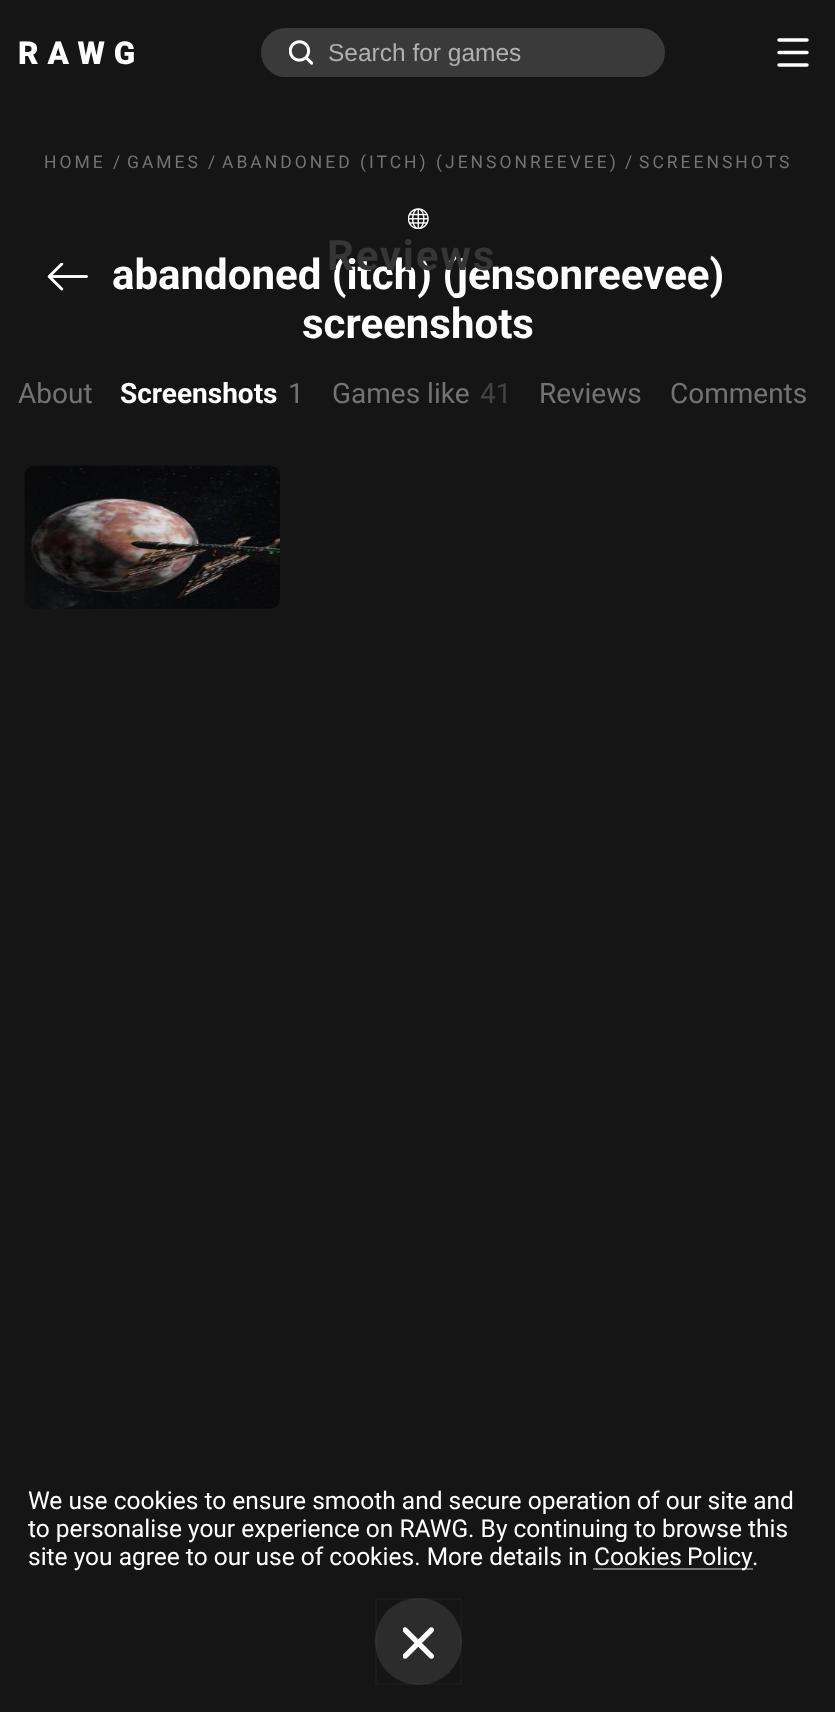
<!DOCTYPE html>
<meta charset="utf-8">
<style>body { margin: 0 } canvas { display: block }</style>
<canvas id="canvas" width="835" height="1712"></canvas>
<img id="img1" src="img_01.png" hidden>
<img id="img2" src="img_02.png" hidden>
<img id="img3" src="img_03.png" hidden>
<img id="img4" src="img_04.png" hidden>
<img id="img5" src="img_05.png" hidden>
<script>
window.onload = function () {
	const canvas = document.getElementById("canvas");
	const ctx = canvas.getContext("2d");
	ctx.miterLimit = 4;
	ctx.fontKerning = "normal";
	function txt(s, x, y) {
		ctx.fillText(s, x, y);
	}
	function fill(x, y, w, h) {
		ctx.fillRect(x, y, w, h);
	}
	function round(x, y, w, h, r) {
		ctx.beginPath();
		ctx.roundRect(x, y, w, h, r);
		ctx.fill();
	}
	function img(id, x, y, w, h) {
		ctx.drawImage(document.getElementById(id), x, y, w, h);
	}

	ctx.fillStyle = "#151515";
	fill(0, 0, 835, 1712);
	ctx.fillStyle = "#3A3A3A";
	round(261, 28, 404, 49, 24.5);
	img("img1", 289, 40, 24, 25);
	ctx.beginPath();
	ctx.moveTo(779, 40);
	ctx.lineTo(807, 40);
	ctx.moveTo(779, 52.5);
	ctx.lineTo(807, 52.5);
	ctx.moveTo(779, 65);
	ctx.lineTo(807, 65);
	ctx.strokeStyle = "#FFFFFF";
	ctx.lineWidth = 3.5;
	ctx.lineCap = "round";
	ctx.stroke();
	img("img2", 408, 208, 21, 21);
	img("img3", 47, 263, 41, 28);
	ctx.fillStyle = "#212121";
	round(25, 466, 255, 143, 11);
	img("img4", 24, 465, 256, 144);
	ctx.fillStyle = "#737373";
	fill(593, 1568, 160, 2);
	ctx.fillStyle = "#2C2C2C";
	ctx.beginPath();
	ctx.arc(418.5, 1641.5, 43.5, 0, Math.PI * 2);
	ctx.fill();
	ctx.strokeStyle = "rgba(151, 151, 151, 0.05)";
	ctx.lineWidth = 2;
	ctx.strokeRect(376, 1599, 85, 85);
	img("img5", 403, 1627, 31, 32);
	ctx.letterSpacing = "9px";
	ctx.font = "900 31.5px Roboto";
	ctx.fillStyle = "#FFFFFF";
	txt("RAWG", 18, 64);
	ctx.letterSpacing = "0px";
	ctx.font = "24.5px Liberation Sans";
	ctx.fillStyle = "#B0B0B0";
	txt("Search for games", 328, 61);
	ctx.letterSpacing = "3px";
	ctx.font = "17.5px Roboto";
	ctx.fillStyle = "#737373";
	txt("HOME", 44, 168);
	ctx.letterSpacing = "0px";
	txt("/", 113, 168);
	ctx.letterSpacing = "3px";
	txt("GAMES", 127, 168);
	ctx.letterSpacing = "0px";
	txt("/", 208, 168);
	ctx.letterSpacing = "3px";
	txt("ABANDONED (ITCH) (JENSONREEVEE)", 222, 168);
	ctx.letterSpacing = "0px";
	txt("/", 625, 168);
	ctx.letterSpacing = "3px";
	txt("SCREENSHOTS", 639, 168);
	ctx.letterSpacing = "0px";
	ctx.font = "bold 42px Roboto";
	ctx.fillStyle = "#FFFFFF";
	txt("abandoned (itch) (jensonreevee)", 112, 289);
	ctx.letterSpacing = "1.75px";
	ctx.fillStyle = "#363636";
	txt("Reviews", 327, 270);
	ctx.letterSpacing = "0px";
	ctx.fillStyle = "#FFFFFF";
	txt("screenshots", 302, 338);
	ctx.font = "28px Roboto";
	ctx.fillStyle = "#737373";
	txt("About", 18, 403);
	ctx.font = "bold 28px Roboto";
	ctx.fillStyle = "#FFFFFF";
	txt("Screenshots", 120, 403);
	ctx.font = "28px Roboto";
	ctx.fillStyle = "#737373";
	txt("1", 288, 403);
	txt("Games like", 332, 403);
	ctx.fillStyle = "#444444";
	txt("41", 480, 403);
	ctx.fillStyle = "#737373";
	txt("Reviews", 539, 403);
	txt("Comments", 670, 403);
	ctx.font = "24.5px Roboto";
	ctx.fillStyle = "#FFFFFF";
	txt("We use cookies to ensure smooth and secure operation of our site and", 28, 1509);
	txt("to personalise your experience on RAWG. By continuing to browse this", 28, 1537);
	txt("site you agree to our use of cookies. More details in", 28, 1565);
	ctx.wordSpacing = "-1px";
	txt("Cookies Policy", 594, 1565);
	ctx.wordSpacing = "0px";
	txt(".", 752, 1565);
};
</script>
